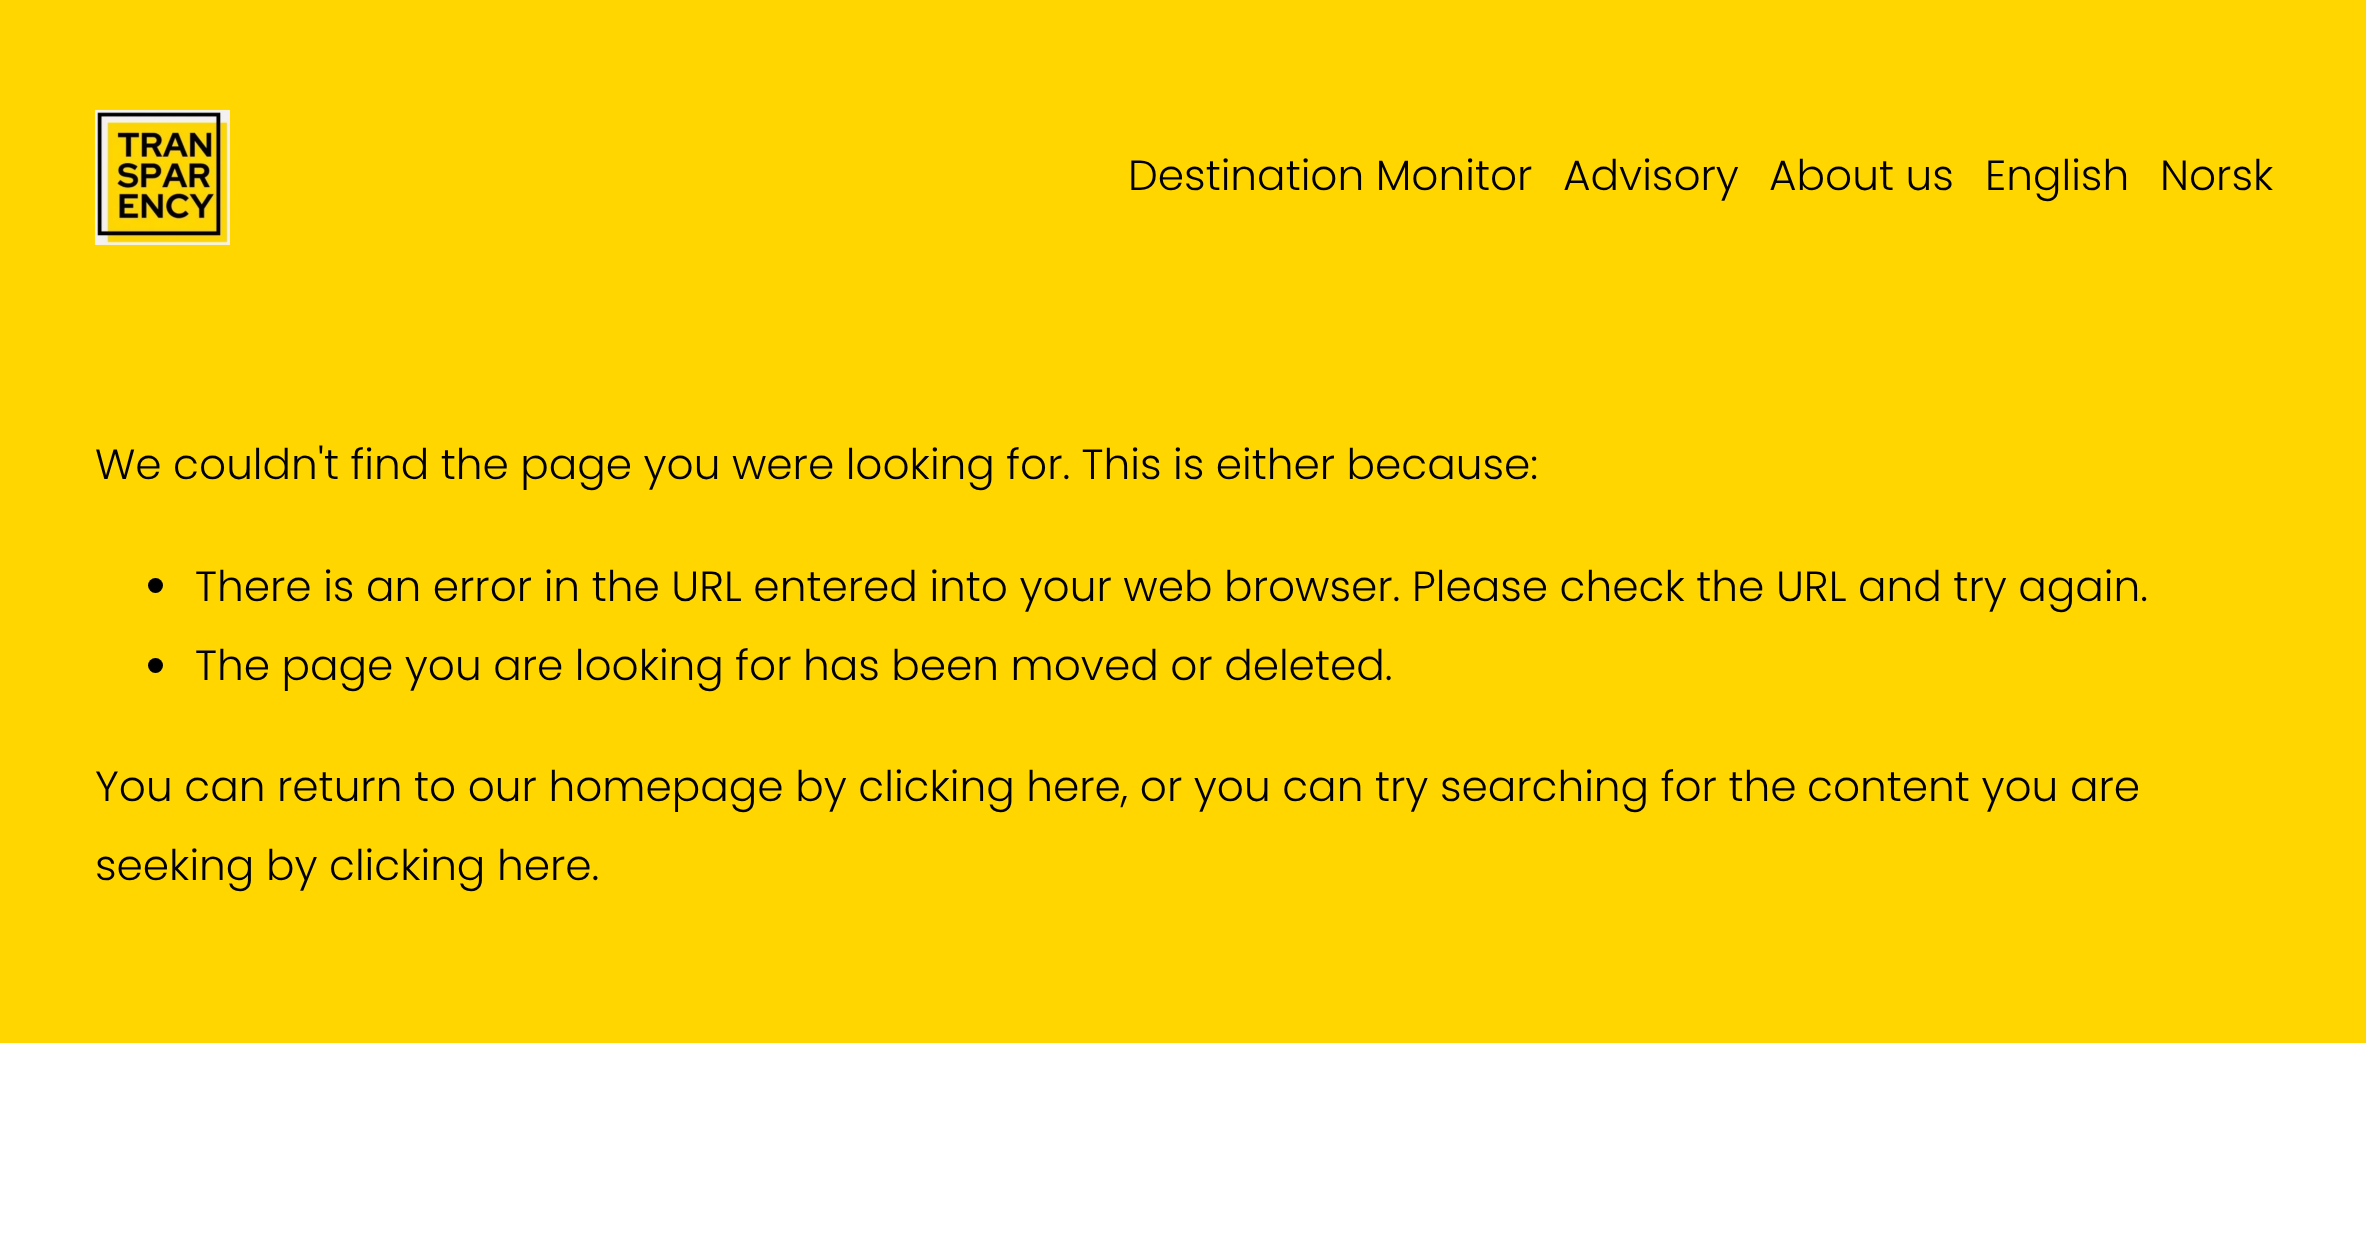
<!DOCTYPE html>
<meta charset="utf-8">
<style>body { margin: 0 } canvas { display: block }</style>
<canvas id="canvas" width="2366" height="1249"></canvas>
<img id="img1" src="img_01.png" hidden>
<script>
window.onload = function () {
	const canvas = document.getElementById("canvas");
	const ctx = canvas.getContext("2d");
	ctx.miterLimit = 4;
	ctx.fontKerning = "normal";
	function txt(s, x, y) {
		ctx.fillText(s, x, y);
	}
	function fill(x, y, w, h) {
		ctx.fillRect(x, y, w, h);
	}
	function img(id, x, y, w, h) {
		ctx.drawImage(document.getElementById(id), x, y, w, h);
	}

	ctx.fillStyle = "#FFD600";
	fill(0, 0, 2366, 1249);
	img("img1", 94, 109, 136, 136);
	ctx.fillStyle = "#000000";
	ctx.beginPath();
	ctx.arc(155.5, 585.5, 7.5, 0, Math.PI * 2);
	ctx.fill();
	ctx.beginPath();
	ctx.arc(155.5, 665.5, 7.5, 0, Math.PI * 2);
	ctx.fill();
	ctx.fillStyle = "#FFFFFF";
	fill(0, 1043, 2366, 206);
	ctx.font = "300 42.25px Poppins";
	ctx.fillStyle = "#000000";
	txt("Destination Monitor", 1128, 190);
	txt("Advisory", 1563, 190);
	txt("About us", 1769, 190);
	txt("English", 1985, 190);
	txt("Norsk", 2160, 190);
	ctx.wordSpacing = "-0.1px";
	txt("We couldn't find the page you were looking for. This is either because:", 95, 479);
	ctx.wordSpacing = "0px";
	txt("There is an error in the URL entered into your web browser. Please check the URL and try again.", 195, 601);
	ctx.wordSpacing = "-0.1px";
	txt("The page you are looking for has been moved or deleted.", 195, 680);
	ctx.wordSpacing = "0px";
	txt("You can return to our homepage by clicking here, or you can try searching for the", 95, 801);
	txt("content you are", 1807, 801);
	txt("seeking by clicking here.", 95, 880);
};
</script>
